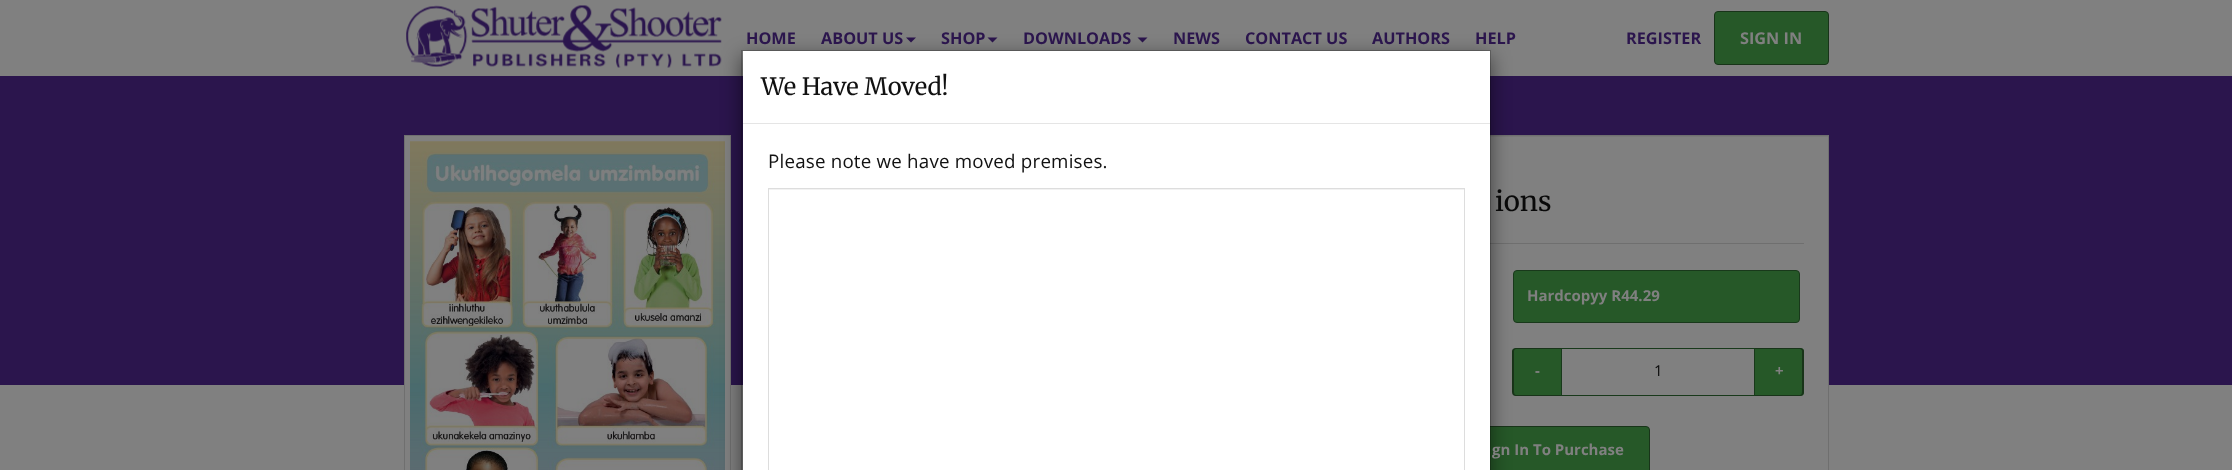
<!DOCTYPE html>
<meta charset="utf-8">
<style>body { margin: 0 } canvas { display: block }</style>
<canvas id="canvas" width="2232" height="470"></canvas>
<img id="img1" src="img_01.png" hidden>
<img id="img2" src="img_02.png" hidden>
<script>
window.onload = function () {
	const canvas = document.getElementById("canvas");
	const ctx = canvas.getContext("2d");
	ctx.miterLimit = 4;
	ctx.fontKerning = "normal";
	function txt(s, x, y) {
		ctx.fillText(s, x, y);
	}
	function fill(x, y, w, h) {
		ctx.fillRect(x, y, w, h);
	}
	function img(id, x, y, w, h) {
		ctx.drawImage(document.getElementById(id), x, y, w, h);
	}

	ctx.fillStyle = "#2B154D";
	fill(0, 0, 2232, 470);
	ctx.fillStyle = "#808080";
	fill(0, 0, 2232, 76);
	img("img1", 406, 5, 316, 63);
	ctx.fillStyle = "#2B154D";
	ctx.beginPath();
	ctx.moveTo(906, 37.5);
	ctx.lineTo(916, 37.5);
	ctx.lineTo(911, 42.5);
	ctx.closePath();
	ctx.fill();
	ctx.beginPath();
	ctx.moveTo(987.5, 37.5);
	ctx.lineTo(997.5, 37.5);
	ctx.lineTo(992.5, 42.5);
	ctx.closePath();
	ctx.fill();
	ctx.beginPath();
	ctx.moveTo(1137.5, 37.5);
	ctx.lineTo(1147.5, 37.5);
	ctx.lineTo(1142.5, 42.5);
	ctx.closePath();
	ctx.fill();
	ctx.fillStyle = "#265828";
	ctx.beginPath();
	ctx.roundRect(1714.5, 11.5, 114, 53, 3.5);
	ctx.fill();
	ctx.strokeStyle = "#183419";
	ctx.stroke();
	ctx.fillStyle = "#808080";
	fill(0, 385, 2232, 85);
	fill(405, 136, 325, 249);
	ctx.strokeStyle = "#6F6F6F";
	ctx.strokeRect(404.5, 135.5, 326, 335);
	img("img2", 410, 141, 315, 329);
	fill(1490, 137, 338, 248);
	ctx.fillStyle = "#797979";
	fill(1490, 136, 338, 1);
	ctx.strokeRect(770.5, 135.5, 1058, 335);
	ctx.fillStyle = "#6F6F6F";
	fill(1490, 243, 314, 1);
	ctx.fillStyle = "#265828";
	ctx.beginPath();
	ctx.roundRect(1513.5, 270.5, 286, 52, 3.5);
	ctx.fill();
	ctx.strokeStyle = "#19391B";
	ctx.stroke();
	ctx.beginPath();
	ctx.roundRect(1513, 348, 48, 48, [4, 0, 0, 4]);
	ctx.fill();
	ctx.fillStyle = "#183419";
	ctx.beginPath();
	ctx.moveTo(1516, 348);
	ctx.lineTo(1561, 348);
	ctx.lineTo(1561, 396);
	ctx.lineTo(1516, 396);
	ctx.bezierCurveTo(1514, 396, 1512, 395, 1512, 392);
	ctx.lineTo(1512, 351);
	ctx.bezierCurveTo(1512, 349, 1514, 348, 1516, 348);
	ctx.closePath();
	ctx.moveTo(1516, 349);
	ctx.lineTo(1561, 349);
	ctx.lineTo(1561, 395);
	ctx.lineTo(1516, 395);
	ctx.bezierCurveTo(1515, 395, 1514, 394, 1514, 392);
	ctx.lineTo(1514, 351);
	ctx.bezierCurveTo(1514, 350, 1515, 349, 1516, 349);
	ctx.closePath();
	ctx.fill("evenodd");
	ctx.fillStyle = "#265828";
	ctx.beginPath();
	ctx.roundRect(1453.5, 426.5, 196, 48, 3.5);
	ctx.fill();
	ctx.strokeStyle = "#183419";
	ctx.stroke();
	ctx.fillStyle = "rgba(0, 0, 0, 0.5)";
	ctx.filter = "blur(9.5px)";
	ctx.beginPath();
	ctx.rect(741, 56, 750, 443);
	ctx.fill();
	ctx.filter = "none";
	ctx.fillStyle = "#FFFFFF";
	fill(743, 51, 747, 419);
	ctx.strokeStyle = "rgba(0, 0, 0, 0.2)";
	ctx.strokeRect(741.5, 50.5, 749, 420);
	ctx.fillStyle = "#E5E5E5";
	fill(743, 123, 747, 1);
	ctx.fillStyle = "#F2F2F2";
	fill(769, 189, 695, 1);
	ctx.strokeStyle = "#DDDDDD";
	ctx.strokeRect(768.5, 188.5, 696, 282);
	ctx.strokeStyle = "#19391B";
	ctx.strokeRect(1561.5, 348.5, 193, 47);
	ctx.fillStyle = "#265828";
	ctx.beginPath();
	ctx.roundRect(1755, 348, 49, 48, [0, 4, 4, 0]);
	ctx.fill();
	ctx.fillStyle = "#183419";
	ctx.beginPath();
	ctx.moveTo(1755, 348);
	ctx.lineTo(1800, 348);
	ctx.bezierCurveTo(1802, 348, 1804, 349, 1804, 351);
	ctx.lineTo(1804, 392);
	ctx.bezierCurveTo(1804, 395, 1802, 396, 1800, 396);
	ctx.lineTo(1755, 396);
	ctx.closePath();
	ctx.moveTo(1755, 349);
	ctx.lineTo(1800, 349);
	ctx.bezierCurveTo(1801, 349, 1802, 350, 1802, 351);
	ctx.lineTo(1802, 392);
	ctx.bezierCurveTo(1802, 394, 1801, 395, 1800, 395);
	ctx.lineTo(1755, 395);
	ctx.closePath();
	ctx.fill("evenodd");
	ctx.font = "bold 16.25px Open Sans";
	ctx.fillStyle = "#2B154D";
	txt("HOME", 746, 44);
	txt("ABOUT US", 821, 44);
	txt("SHOP", 941, 44);
	txt("DOWNLOADS", 1023, 44);
	txt("NEWS", 1173, 44);
	txt("CONTACT US", 1245, 44);
	txt("AUTHORS", 1372, 44);
	txt("HELP", 1475, 44);
	txt("REGISTER", 1626, 44);
	ctx.fillStyle = "#808080";
	txt("SIGN IN", 1740, 44);
	ctx.font = "300 23.75px Merriweather";
	ctx.fillStyle = "#111111";
	txt("We Have Moved!", 761, 95);
	ctx.letterSpacing = "0.2px";
	ctx.font = "18.75px Open Sans";
	txt("Please note we have moved premises.", 768, 168);
	ctx.letterSpacing = "0px";
	ctx.font = "300 27.5px Merriweather";
	ctx.fillStyle = "#090909";
	txt("ions", 1495, 211);
	ctx.font = "bold 15px Open Sans";
	ctx.fillStyle = "#808080";
	txt("Hardcopyy R44.29", 1527, 301);
	txt("-", 1535, 376);
	ctx.font = "15px Open Sans";
	ctx.fillStyle = "#090909";
	txt("1", 1654, 376);
	ctx.font = "bold 15px Open Sans";
	ctx.fillStyle = "#808080";
	txt("+", 1775, 376);
	txt("gn In To Purchase", 1492, 455);
};
</script>
